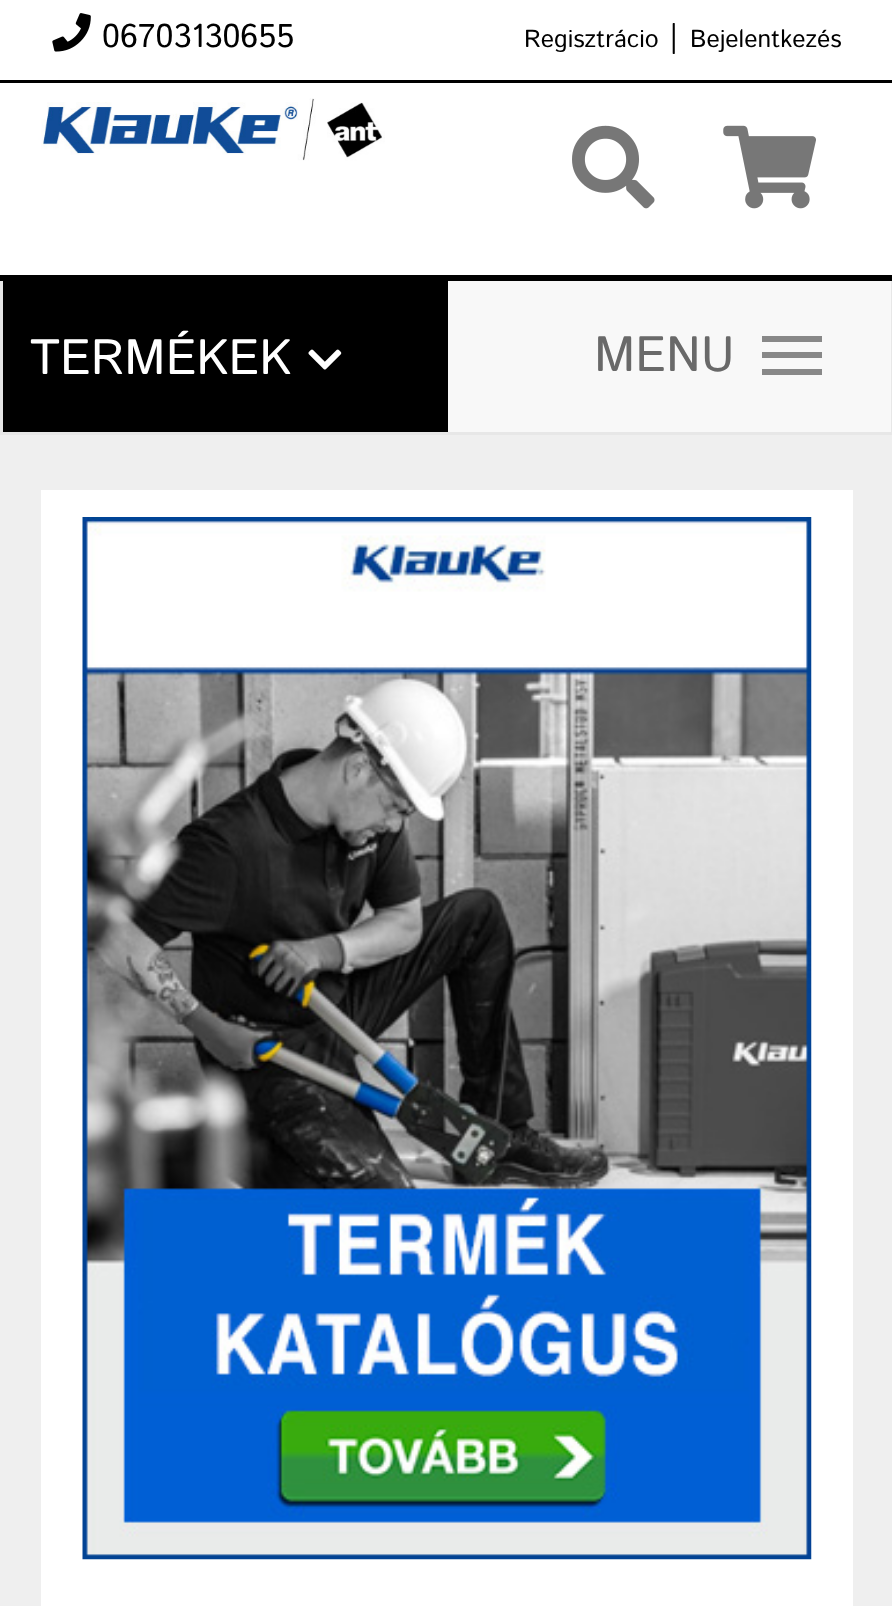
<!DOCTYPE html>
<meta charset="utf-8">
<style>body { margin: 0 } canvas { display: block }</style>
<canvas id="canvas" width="892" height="1606"></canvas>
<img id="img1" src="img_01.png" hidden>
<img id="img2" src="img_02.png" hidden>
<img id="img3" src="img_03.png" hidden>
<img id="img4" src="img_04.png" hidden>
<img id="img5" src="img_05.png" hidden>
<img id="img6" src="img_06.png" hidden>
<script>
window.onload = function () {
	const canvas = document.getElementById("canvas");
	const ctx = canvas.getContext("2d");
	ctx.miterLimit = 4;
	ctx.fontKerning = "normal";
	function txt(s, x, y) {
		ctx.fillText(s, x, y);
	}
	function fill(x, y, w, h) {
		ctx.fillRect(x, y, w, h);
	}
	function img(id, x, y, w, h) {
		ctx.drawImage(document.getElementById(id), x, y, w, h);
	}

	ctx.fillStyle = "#EFEFEF";
	fill(0, 0, 892, 1606);
	ctx.fillStyle = "#FFFFFF";
	fill(0, 0, 892, 80);
	ctx.fillStyle = "#000000";
	fill(0, 80, 892, 3);
	img("img1", 52, 13, 39, 39);
	ctx.fillStyle = "#FFFFFF";
	fill(0, 83, 892, 192);
	ctx.fillStyle = "#F8F8F8";
	fill(448, 281, 443, 151);
	ctx.strokeStyle = "#E7E7E7";
	ctx.lineWidth = 3;
	ctx.strokeRect(1.5, 276.5, 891, 157);
	ctx.fillStyle = "#000000";
	fill(0, 275, 892, 6);
	img("img2", 41, 98, 344, 63);
	img("img3", 572, 125, 83, 84);
	img("img4", 723, 125, 93, 84);
	fill(3, 281, 445, 151);
	img("img5", 308, 349, 34, 21);
	ctx.fillStyle = "#888888";
	fill(762, 336, 60, 6);
	fill(762, 352, 60, 6);
	fill(762, 369, 60, 6);
	ctx.fillStyle = "#FFFFFF";
	fill(41, 490, 812, 1116);
	img("img6", 82, 517, 730, 1043);
	ctx.font = "33px Istok Web";
	ctx.fillStyle = "#000000";
	txt("06703130655", 102, 47);
	ctx.font = "24.75px Istok Web";
	txt("Regisztrácio", 524, 47);
	ctx.font = "33px Istok Web";
	txt("|", 669, 47);
	ctx.font = "24.75px Istok Web";
	txt("Bejelentkezés", 690, 47);
	ctx.font = "49.5px Istok Web";
	ctx.fillStyle = "#FFFFFF";
	txt("TERMÉKEK", 30, 374);
	ctx.fillStyle = "#696969";
	txt("MENU", 594, 371);
};
</script>
